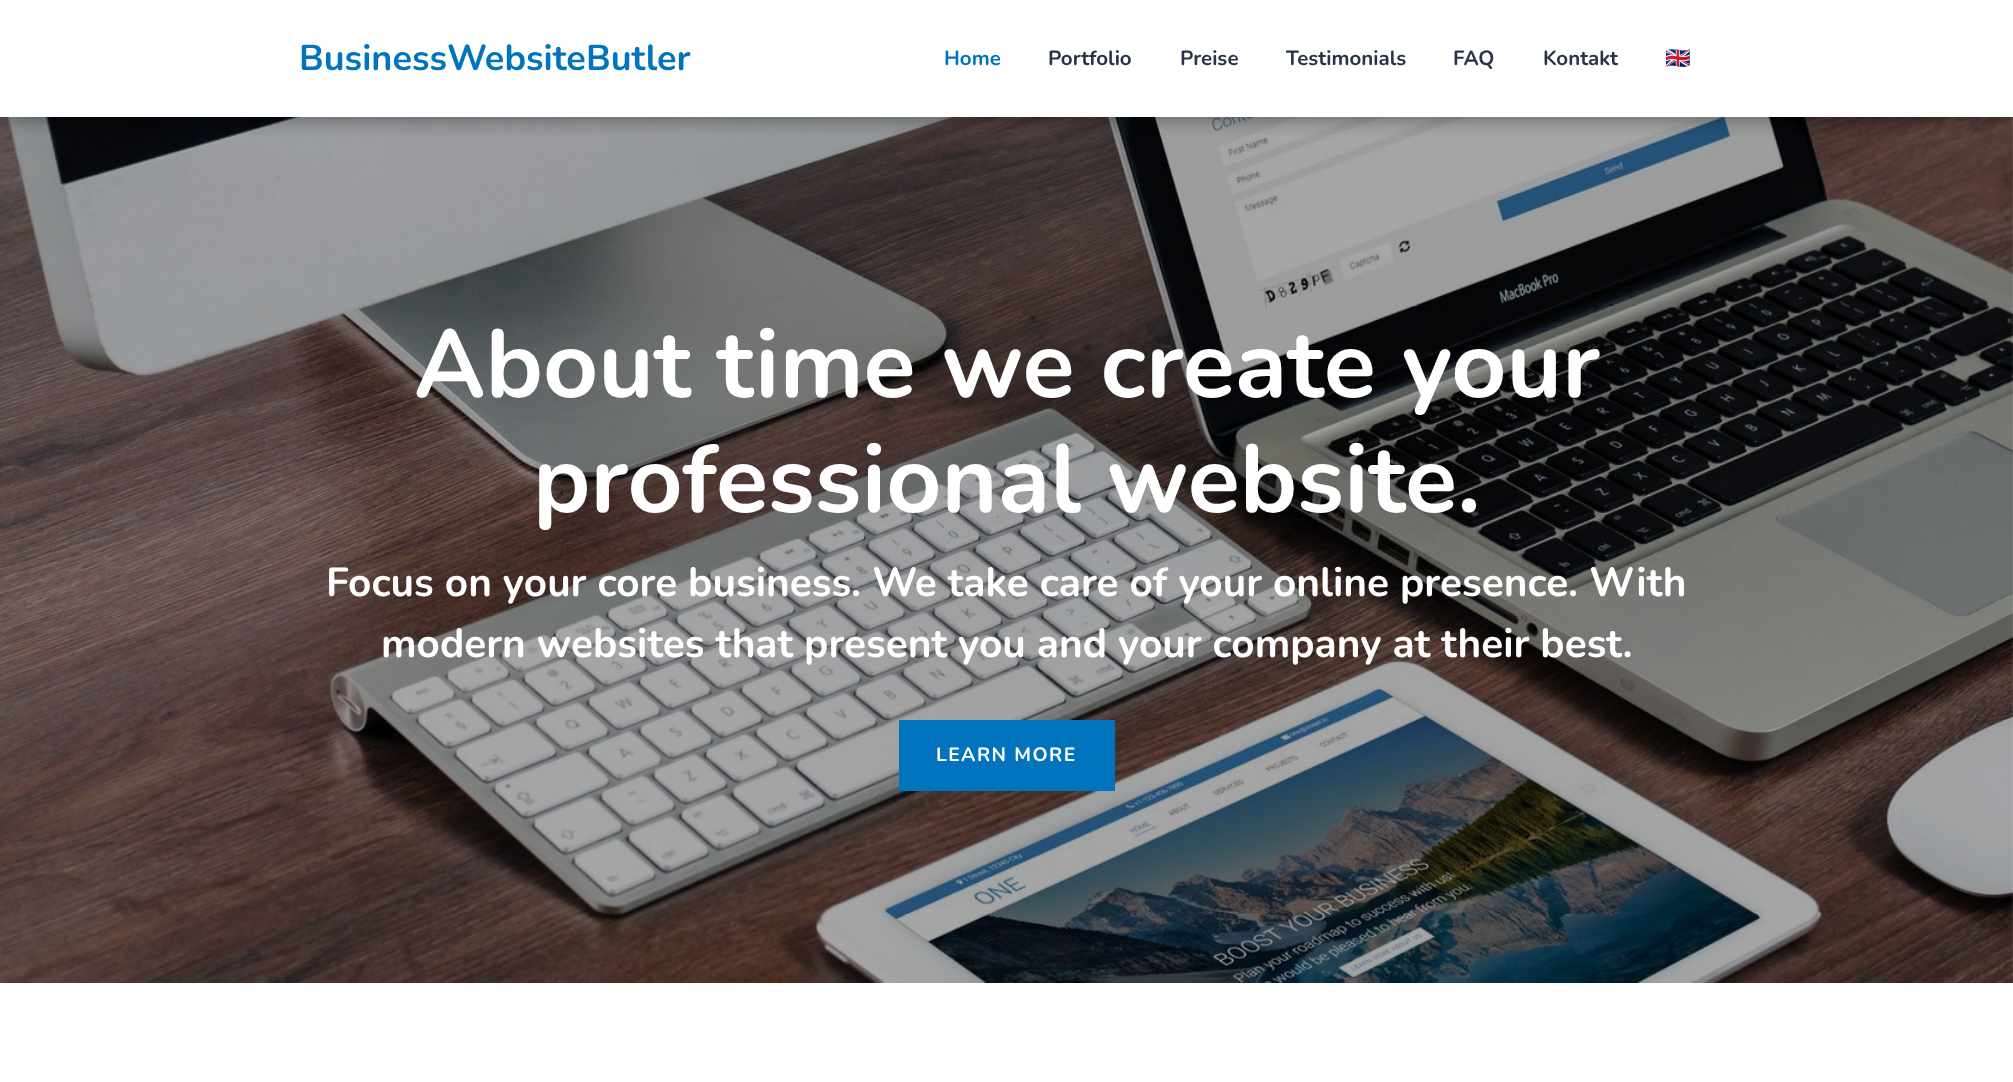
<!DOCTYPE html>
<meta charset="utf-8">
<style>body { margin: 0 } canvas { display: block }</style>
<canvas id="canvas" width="2013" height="1082"></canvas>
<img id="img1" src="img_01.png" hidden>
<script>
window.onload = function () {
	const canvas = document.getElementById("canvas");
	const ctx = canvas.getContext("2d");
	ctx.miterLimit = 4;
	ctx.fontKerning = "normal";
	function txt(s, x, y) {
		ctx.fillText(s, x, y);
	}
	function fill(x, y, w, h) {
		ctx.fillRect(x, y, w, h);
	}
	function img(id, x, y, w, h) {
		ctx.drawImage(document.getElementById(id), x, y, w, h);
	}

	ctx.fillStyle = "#FFFFFF";
	fill(0, 0, 2013, 1082);
	img("img1", 0, 117, 2013, 866);
	ctx.save();
	ctx.beginPath();
	ctx.rect(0, 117, 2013, 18);
	ctx.clip();
	ctx.fillStyle = "rgba(0, 0, 0, 0.5)";
	ctx.filter = "blur(11px)";
	ctx.beginPath();
	ctx.rect(5, 8, 2004, 108);
	ctx.fill();
	ctx.filter = "none";
	ctx.restore();
	ctx.fillStyle = "#0274BE";
	fill(899, 720, 216, 71);
	ctx.font = "bold 36px Nunito";
	txt("BusinessWebsiteButler", 299, 70);
	ctx.font = "bold 20.5px Nunito";
	txt("Home", 944, 65);
	ctx.fillStyle = "#293247";
	txt("Portfolio", 1048, 65);
	txt("Preise", 1180, 65);
	txt("Testimonials", 1286, 65);
	txt("FAQ", 1453, 65);
	txt("Kontakt", 1543, 65);
	ctx.font = "bold 20.5px Noto Color Emoji";
	txt("🇬🇧", 1665, 65);
	ctx.font = "bold 96px Nunito";
	ctx.fillStyle = "#FFFFFF";
	txt("About time we create your", 414, 397);
	txt("professional website.", 533, 512);
	ctx.font = "bold 40.55px Nunito";
	txt("Focus on your core business. We take care of your online presence. With", 326, 596);
	txt("modern websites that present you and your company at their best.", 381, 657);
	ctx.letterSpacing = "1.5px";
	ctx.font = "bold 19.25px Nunito";
	txt("LEARN MORE", 936, 761);
};
</script>
